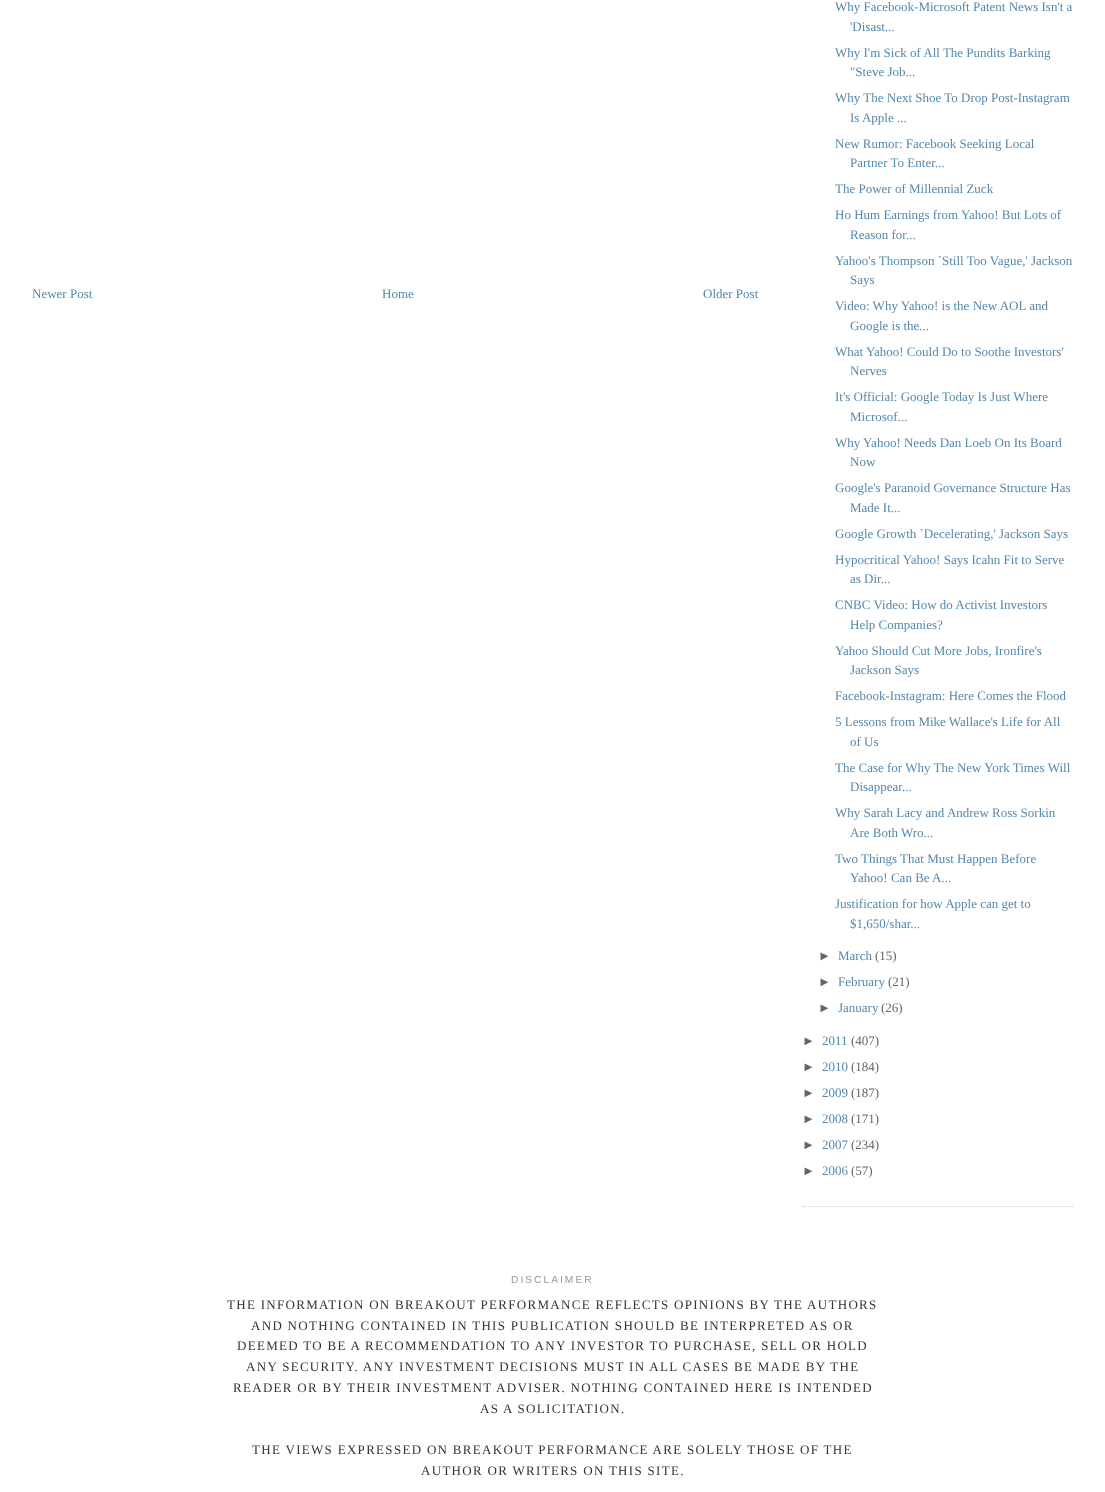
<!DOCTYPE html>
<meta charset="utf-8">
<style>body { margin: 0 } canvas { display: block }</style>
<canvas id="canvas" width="1105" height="1492"></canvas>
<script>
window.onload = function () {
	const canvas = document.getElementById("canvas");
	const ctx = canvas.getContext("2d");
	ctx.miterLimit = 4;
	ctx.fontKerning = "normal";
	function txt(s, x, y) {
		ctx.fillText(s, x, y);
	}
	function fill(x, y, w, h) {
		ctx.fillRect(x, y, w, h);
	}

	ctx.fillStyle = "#FFFFFF";
	fill(0, 0, 1105, 1492);
	ctx.beginPath();
	ctx.moveTo(802, 1206.5);
	ctx.lineTo(1073, 1206.5);
	ctx.strokeStyle = "#CCCCCC";
	ctx.setLineDash([1, 1]);
	ctx.stroke();
	ctx.font = "13px Liberation Serif";
	ctx.fillStyle = "#5588AA";
	txt("Newer Post", 32, 298);
	txt("Home", 382, 298);
	txt("Older Post", 703, 298);
	txt("Why Facebook-Microsoft Patent News Isn't a", 835, 11);
	txt("'Disast...", 850, 31);
	txt("Why I'm Sick of All The Pundits Barking", 835, 57);
	txt("\"Steve Job...", 850, 76);
	txt("Why The Next Shoe To Drop Post-Instagram", 835, 102);
	txt("Is Apple ...", 850, 122);
	txt("New Rumor: Facebook Seeking Local", 835, 148);
	txt("Partner To Enter...", 850, 167);
	txt("The Power of Millennial Zuck", 835, 193);
	txt("Ho Hum Earnings from Yahoo! But Lots of", 835, 219);
	txt("Reason for...", 850, 239);
	txt("Yahoo's Thompson `Still Too Vague,' Jackson", 835, 265);
	txt("Says", 850, 284);
	txt("Video: Why Yahoo! is the New AOL and", 835, 310);
	txt("Google is the...", 850, 330);
	txt("What Yahoo! Could Do to Soothe Investors'", 835, 356);
	txt("Nerves", 850, 375);
	txt("It's Official: Google Today Is Just Where", 835, 401);
	txt("Microsof...", 850, 421);
	txt("Why Yahoo! Needs Dan Loeb On Its Board", 835, 447);
	txt("Now", 850, 466);
	txt("Google's Paranoid Governance Structure Has", 835, 492);
	txt("Made It...", 850, 512);
	txt("Google Growth `Decelerating,' Jackson Says", 835, 538);
	txt("Hypocritical Yahoo! Says Icahn Fit to Serve", 835, 564);
	txt("as Dir...", 850, 583);
	txt("CNBC Video: How do Activist Investors", 835, 609);
	txt("Help Companies?", 850, 629);
	txt("Yahoo Should Cut More Jobs, Ironfire's", 835, 655);
	txt("Jackson Says", 850, 674);
	txt("Facebook-Instagram: Here Comes the Flood", 835, 700);
	txt("5 Lessons from Mike Wallace's Life for All", 835, 726);
	txt("of Us", 850, 746);
	txt("The Case for Why The New York Times Will", 835, 772);
	txt("Disappear...", 850, 791);
	txt("Why Sarah Lacy and Andrew Ross Sorkin", 835, 817);
	txt("Are Both Wro...", 850, 837);
	txt("Two Things That Must Happen Before", 835, 863);
	txt("Yahoo! Can Be A...", 850, 882);
	txt("Justification for how Apple can get to", 835, 908);
	txt("$1,650/shar...", 850, 928);
	ctx.font = "13px Liberation Sans";
	ctx.fillStyle = "#666666";
	txt("►", 818, 960);
	ctx.font = "13px Liberation Serif";
	ctx.fillStyle = "#5588AA";
	txt("March", 838, 960);
	ctx.fillStyle = "#666666";
	txt("(15)", 875, 960);
	ctx.font = "13px Liberation Sans";
	txt("►", 818, 986);
	ctx.font = "13px Liberation Serif";
	ctx.fillStyle = "#5588AA";
	txt("February", 838, 986);
	ctx.fillStyle = "#666666";
	txt("(21)", 888, 986);
	ctx.font = "13px Liberation Sans";
	txt("►", 818, 1012);
	ctx.font = "13px Liberation Serif";
	ctx.fillStyle = "#5588AA";
	txt("January", 838, 1012);
	ctx.fillStyle = "#666666";
	txt("(26)", 881, 1012);
	ctx.font = "13px Liberation Sans";
	txt("►", 802, 1045);
	ctx.font = "13px Liberation Serif";
	ctx.fillStyle = "#5588AA";
	txt("2011", 822, 1045);
	ctx.fillStyle = "#666666";
	txt("(407)", 851, 1045);
	ctx.font = "13px Liberation Sans";
	txt("►", 802, 1071);
	ctx.font = "13px Liberation Serif";
	ctx.fillStyle = "#5588AA";
	txt("2010", 822, 1071);
	ctx.fillStyle = "#666666";
	txt("(184)", 851, 1071);
	ctx.font = "13px Liberation Sans";
	txt("►", 802, 1097);
	ctx.font = "13px Liberation Serif";
	ctx.fillStyle = "#5588AA";
	txt("2009", 822, 1097);
	ctx.fillStyle = "#666666";
	txt("(187)", 851, 1097);
	ctx.font = "13px Liberation Sans";
	txt("►", 802, 1123);
	ctx.font = "13px Liberation Serif";
	ctx.fillStyle = "#5588AA";
	txt("2008", 822, 1123);
	ctx.fillStyle = "#666666";
	txt("(171)", 851, 1123);
	ctx.font = "13px Liberation Sans";
	txt("►", 802, 1149);
	ctx.font = "13px Liberation Serif";
	ctx.fillStyle = "#5588AA";
	txt("2007", 822, 1149);
	ctx.fillStyle = "#666666";
	txt("(234)", 851, 1149);
	ctx.font = "13px Liberation Sans";
	txt("►", 802, 1175);
	ctx.font = "13px Liberation Serif";
	ctx.fillStyle = "#5588AA";
	txt("2006", 822, 1175);
	ctx.fillStyle = "#666666";
	txt("(57)", 851, 1175);
	ctx.letterSpacing = "2px";
	ctx.font = "10.25px Liberation Sans";
	ctx.fillStyle = "#999999";
	txt("DISCLAIMER", 511, 1283);
	ctx.letterSpacing = "1.3px";
	ctx.font = "13px Liberation Serif";
	ctx.fillStyle = "#333333";
	txt("THE INFORMATION ON BREAKOUT PERFORMANCE REFLECTS OPINIONS BY THE AUTHORS", 227, 1309);
	txt("AND NOTHING CONTAINED IN THIS PUBLICATION SHOULD BE INTERPRETED AS OR", 251, 1330);
	txt("DEEMED TO BE A RECOMMENDATION TO ANY INVESTOR TO PURCHASE, SELL OR HOLD", 237, 1350);
	txt("ANY SECURITY. ANY INVESTMENT DECISIONS MUST IN ALL CASES BE MADE BY THE", 246, 1371);
	txt("READER OR BY THEIR INVESTMENT ADVISER. NOTHING CONTAINED HERE IS INTENDED", 233, 1392);
	txt("AS A SOLICITATION.", 480, 1413);
	txt("THE VIEWS EXPRESSED ON BREAKOUT PERFORMANCE ARE SOLELY THOSE OF THE", 252, 1454);
	txt("AUTHOR OR WRITERS ON THIS SITE.", 421, 1475);
};
</script>
